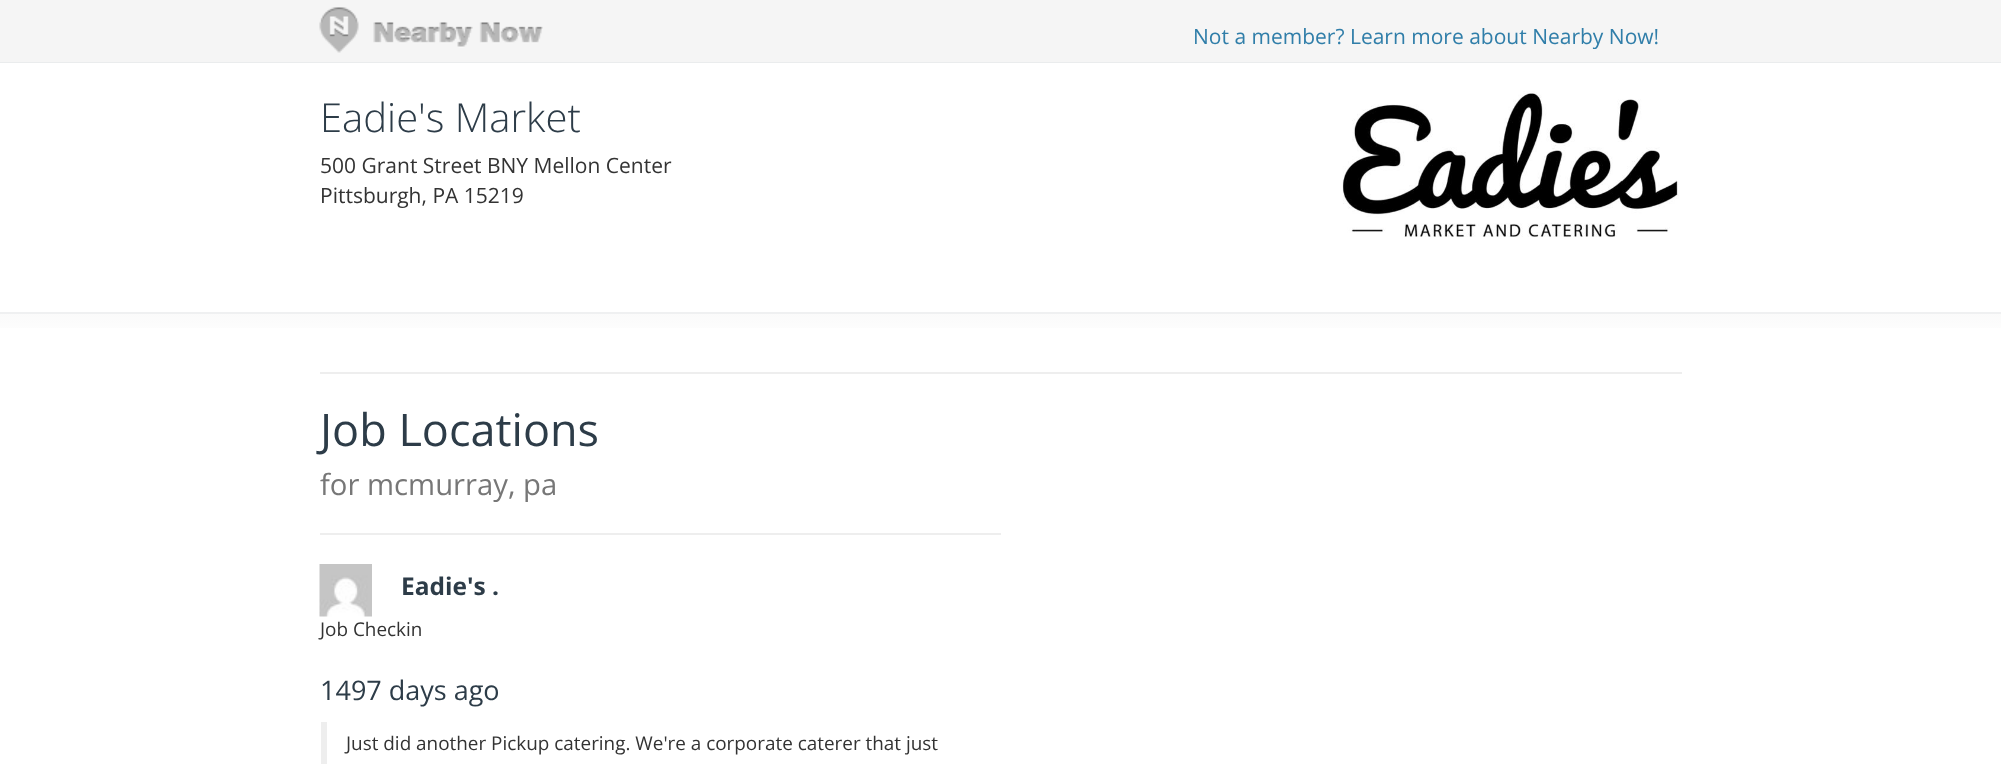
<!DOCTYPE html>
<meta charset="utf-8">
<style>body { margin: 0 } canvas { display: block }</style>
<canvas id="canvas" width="2001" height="764"></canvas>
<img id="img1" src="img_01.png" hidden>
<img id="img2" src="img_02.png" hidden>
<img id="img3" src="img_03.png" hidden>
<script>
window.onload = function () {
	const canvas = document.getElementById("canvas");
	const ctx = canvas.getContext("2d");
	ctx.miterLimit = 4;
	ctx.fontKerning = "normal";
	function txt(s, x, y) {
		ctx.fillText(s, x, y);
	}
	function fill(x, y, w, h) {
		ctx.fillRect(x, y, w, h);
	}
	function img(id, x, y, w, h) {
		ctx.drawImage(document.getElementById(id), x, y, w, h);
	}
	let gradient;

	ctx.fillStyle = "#FFFFFF";
	fill(0, 0, 2001, 764);
	ctx.fillStyle = "#EAECED";
	fill(0, 62, 2001, 1);
	ctx.fillStyle = "#F5F5F5";
	fill(0, 0, 2001, 62);
	img("img1", 319, 7, 224, 46);
	img("img2", 1342, 91, 337, 146);
	gradient = ctx.createLinearGradient(1001, 313, 1001, 342);
	gradient.addColorStop(0, "#FAFAFA");
	gradient.addColorStop(1, "#FFFFFF");
	ctx.fillStyle = gradient;
	fill(0, 314, 2001, 14);
	ctx.fillStyle = "#EFF0F1";
	fill(0, 312, 2001, 2);
	ctx.fillStyle = "#EEEEEE";
	fill(320, 372, 1362, 2);
	fill(320, 533, 681, 2);
	img("img3", 319, 564, 53, 53);
	fill(321, 722, 6, 42);
	ctx.font = "21px Open Sans";
	ctx.fillStyle = "#307EA9";
	txt("Not a member? Learn more about Nearby Now!", 1193, 44);
	ctx.font = "300 40px Open Sans";
	ctx.fillStyle = "#2D3C48";
	txt("Eadie's Market", 320, 132);
	ctx.font = "21px Open Sans";
	ctx.fillStyle = "#333333";
	txt("500 Grant Street BNY Mellon Center", 320, 173);
	txt("Pittsburgh, PA 15219", 320, 203);
	ctx.font = "45px Open Sans";
	ctx.fillStyle = "#2D3C48";
	txt("Job Locations", 320, 446);
	ctx.font = "29.25px Open Sans";
	ctx.fillStyle = "#777777";
	txt("for mcmurray, pa", 320, 495);
	ctx.font = "bold 24.5px Open Sans";
	ctx.fillStyle = "#2D3C48";
	txt("Eadie's .", 401, 595);
	ctx.font = "18.9px Open Sans";
	ctx.fillStyle = "#333333";
	txt("Job Checkin", 320, 636);
	ctx.font = "27px Open Sans";
	ctx.fillStyle = "#2D3C48";
	txt("1497 days ago", 320, 700);
	ctx.font = "18.9px Open Sans";
	ctx.fillStyle = "#333333";
	txt("Just did another Pickup catering. We're a corporate caterer that just", 346, 750);
};
</script>
